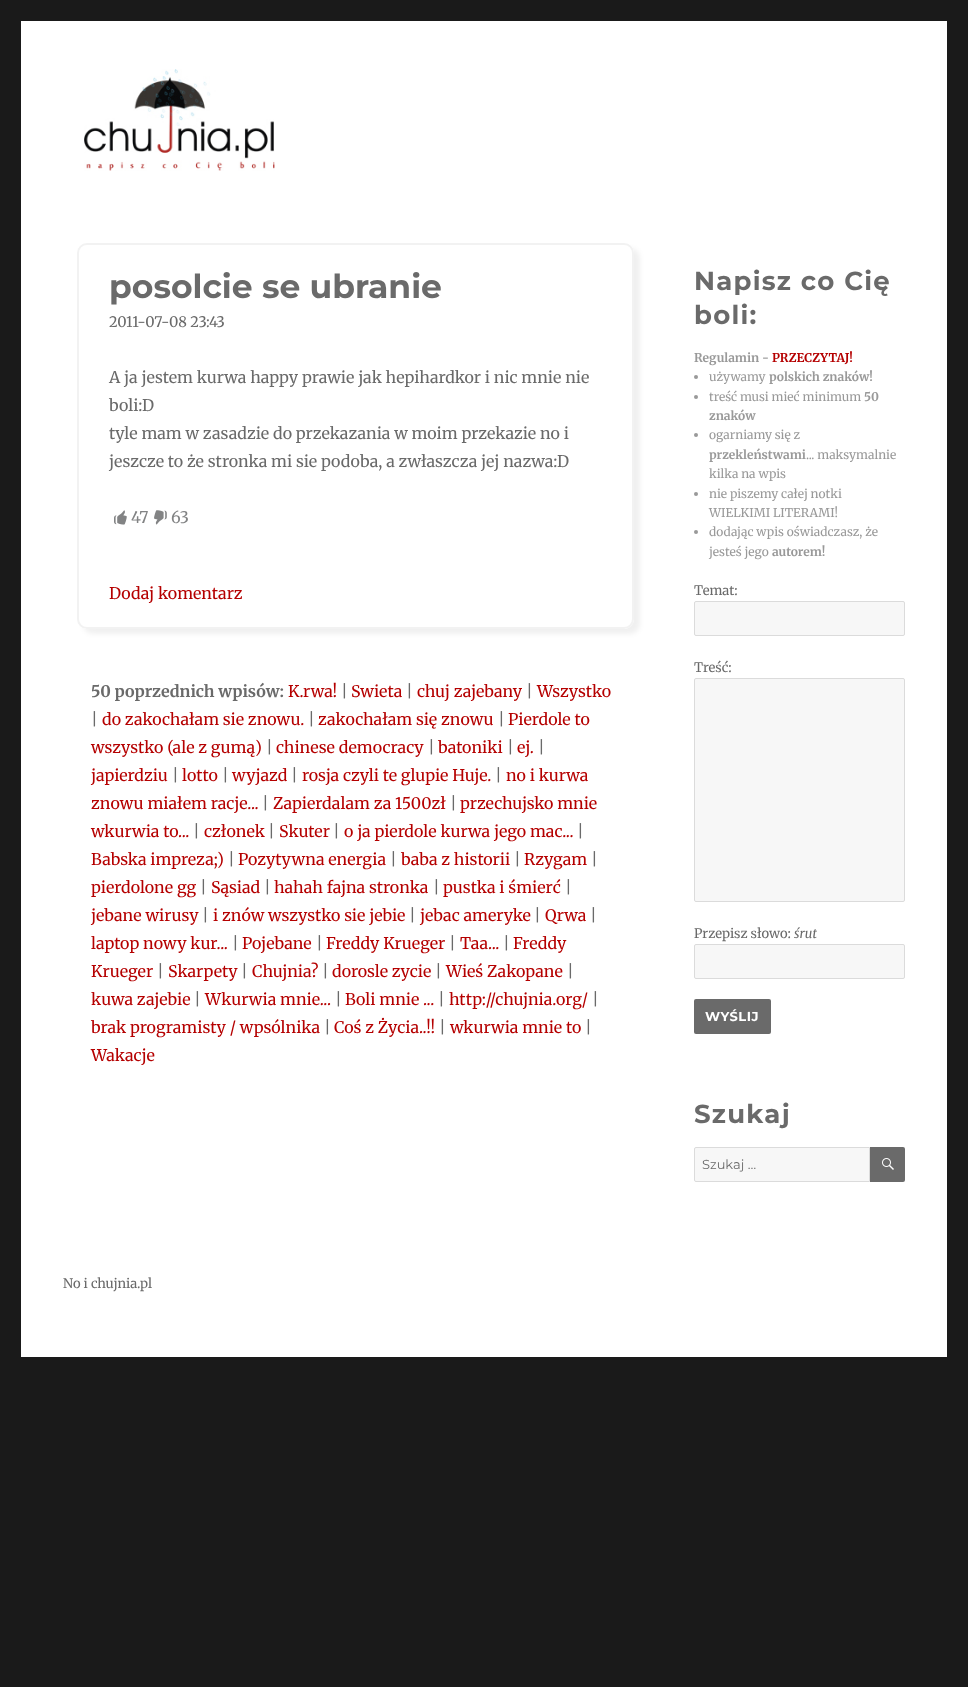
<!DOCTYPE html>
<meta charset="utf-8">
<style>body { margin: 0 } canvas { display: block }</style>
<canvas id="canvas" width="968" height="1687"></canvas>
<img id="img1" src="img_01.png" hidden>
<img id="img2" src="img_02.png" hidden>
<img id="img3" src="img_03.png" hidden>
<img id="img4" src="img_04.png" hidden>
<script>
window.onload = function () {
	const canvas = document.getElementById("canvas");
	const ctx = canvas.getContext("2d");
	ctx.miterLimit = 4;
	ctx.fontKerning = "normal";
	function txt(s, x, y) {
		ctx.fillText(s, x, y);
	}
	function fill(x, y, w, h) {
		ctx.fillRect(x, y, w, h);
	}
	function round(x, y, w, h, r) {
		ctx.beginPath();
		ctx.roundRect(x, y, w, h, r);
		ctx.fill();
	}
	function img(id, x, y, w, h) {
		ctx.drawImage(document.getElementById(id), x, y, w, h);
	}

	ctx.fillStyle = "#1A1A1A";
	fill(0, 0, 968, 1687);
	ctx.fillStyle = "#FFFFFF";
	fill(21, 21, 926, 1336);
	img("img1", 84, 69, 191, 102);
	ctx.save();
	ctx.beginPath();
	ctx.moveTo(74, 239);
	ctx.lineTo(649, 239);
	ctx.lineTo(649, 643);
	ctx.lineTo(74, 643);
	ctx.closePath();
	ctx.moveTo(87, 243);
	ctx.lineTo(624, 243);
	ctx.bezierCurveTo(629.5, 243, 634, 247.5, 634, 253);
	ctx.lineTo(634, 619);
	ctx.bezierCurveTo(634, 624.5, 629.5, 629, 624, 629);
	ctx.lineTo(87, 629);
	ctx.bezierCurveTo(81.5, 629, 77, 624.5, 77, 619);
	ctx.lineTo(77, 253);
	ctx.bezierCurveTo(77, 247.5, 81.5, 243, 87, 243);
	ctx.closePath();
	ctx.clip("evenodd");
	ctx.fillStyle = "rgba(0, 0, 0, 0.06)";
	ctx.filter = "blur(2.5px)";
	ctx.beginPath();
	ctx.roundRect(83, 248, 557, 386, 10);
	ctx.fill();
	ctx.filter = "none";
	ctx.restore();
	ctx.beginPath();
	ctx.roundRect(78, 244, 555, 384, 9);
	ctx.strokeStyle = "#F2F2F2";
	ctx.lineWidth = 2;
	ctx.stroke();
	img("img2", 114, 510, 13, 15);
	img("img3", 154, 510, 13, 15);
	ctx.fillStyle = "#999999";
	ctx.beginPath();
	ctx.arc(696, 377, 2, 0, Math.PI * 2);
	ctx.fill();
	ctx.beginPath();
	ctx.arc(696, 397, 2, 0, Math.PI * 2);
	ctx.fill();
	ctx.beginPath();
	ctx.arc(696, 435, 2, 0, Math.PI * 2);
	ctx.fill();
	ctx.beginPath();
	ctx.arc(696, 494, 2, 0, Math.PI * 2);
	ctx.fill();
	ctx.beginPath();
	ctx.arc(696, 532, 2, 0, Math.PI * 2);
	ctx.fill();
	ctx.fillStyle = "#F7F7F7";
	ctx.beginPath();
	ctx.roundRect(694.5, 601.5, 210, 34, 1.5);
	ctx.fill();
	ctx.strokeStyle = "#DBDBDB";
	ctx.lineWidth = 1;
	ctx.stroke();
	ctx.beginPath();
	ctx.roundRect(694.5, 678.5, 210, 223, 1.5);
	ctx.fill();
	ctx.stroke();
	ctx.beginPath();
	ctx.roundRect(694.5, 944.5, 210, 34, 1.5);
	ctx.fill();
	ctx.stroke();
	ctx.fillStyle = "#6A6A6A";
	round(694, 999, 77, 35, 2);
	ctx.fillStyle = "#F7F7F7";
	ctx.beginPath();
	ctx.roundRect(694.5, 1147.5, 175, 34, [1.5, 0, 0, 1.5]);
	ctx.fill();
	ctx.stroke();
	ctx.fillStyle = "#6A6A6A";
	ctx.beginPath();
	ctx.roundRect(870, 1147, 35, 35, [0, 2, 2, 0]);
	ctx.fill();
	img("img4", 882, 1158, 12, 12);
	ctx.font = "bold 33px Montserrat";
	txt("posolcie se ubranie", 109, 298);
	ctx.font = "14.5px Merriweather";
	txt("2011-07-08 23:43", 109, 327);
	ctx.font = "16px Merriweather";
	txt("A ja jestem kurwa happy prawie jak hepihardkor i nic mnie nie", 109, 383);
	txt("boli:D", 109, 411);
	txt("tyle mam w zasadzie do przekazania w moim przekazie no i", 109, 439);
	txt("jeszcze to że stronka mi sie podoba, a zwłaszcza jej nazwa:D", 109, 467);
	ctx.fillStyle = "#828384";
	txt("47", 131, 523);
	txt("63", 171, 523);
	ctx.fillStyle = "#B50000";
	txt("Dodaj komentarz", 109, 599);
	ctx.font = "bold 16px Merriweather";
	ctx.fillStyle = "#6A6A6A";
	txt("50 poprzednich wpisów:", 91, 697);
	ctx.font = "16px Merriweather";
	ctx.fillStyle = "#B50000";
	txt("K.rwa!", 288, 697);
	ctx.fillStyle = "#6A6A6A";
	txt("|", 341, 697);
	ctx.fillStyle = "#B50000";
	txt("Swieta", 351, 697);
	ctx.fillStyle = "#6A6A6A";
	txt("|", 406, 697);
	ctx.fillStyle = "#B50000";
	txt("chuj zajebany", 417, 697);
	ctx.fillStyle = "#6A6A6A";
	txt("|", 526, 697);
	ctx.fillStyle = "#B50000";
	txt("Wszystko", 537, 697);
	ctx.fillStyle = "#6A6A6A";
	txt("|", 91, 725);
	ctx.fillStyle = "#B50000";
	txt("do zakochałam sie znowu.", 102, 725);
	ctx.fillStyle = "#6A6A6A";
	txt("|", 308, 725);
	ctx.fillStyle = "#B50000";
	txt("zakochałam się znowu", 318, 725);
	ctx.fillStyle = "#6A6A6A";
	txt("|", 498, 725);
	ctx.fillStyle = "#B50000";
	txt("Pierdole to", 508, 725);
	txt("wszystko (ale z gumą)", 91, 753);
	ctx.fillStyle = "#6A6A6A";
	txt("|", 266, 753);
	ctx.fillStyle = "#B50000";
	txt("chinese democracy", 276, 753);
	ctx.fillStyle = "#6A6A6A";
	txt("|", 428, 753);
	ctx.fillStyle = "#B50000";
	txt("batoniki", 438, 753);
	ctx.fillStyle = "#6A6A6A";
	txt("|", 507, 753);
	ctx.fillStyle = "#B50000";
	txt("ej.", 517, 753);
	ctx.fillStyle = "#6A6A6A";
	txt("|", 538, 753);
	ctx.fillStyle = "#B50000";
	txt("japierdziu", 91, 781);
	ctx.fillStyle = "#6A6A6A";
	txt("|", 172, 781);
	ctx.fillStyle = "#B50000";
	txt("lotto", 182, 781);
	ctx.fillStyle = "#6A6A6A";
	txt("|", 222, 781);
	ctx.fillStyle = "#B50000";
	txt("wyjazd", 232, 781);
	ctx.fillStyle = "#6A6A6A";
	txt("|", 291, 781);
	ctx.fillStyle = "#B50000";
	txt("rosja czyli te glupie Huje.", 302, 781);
	ctx.fillStyle = "#6A6A6A";
	txt("|", 495, 781);
	ctx.fillStyle = "#B50000";
	txt("no i kurwa", 506, 781);
	txt("znowu miałem racje...", 91, 809);
	ctx.fillStyle = "#6A6A6A";
	txt("|", 262, 809);
	ctx.fillStyle = "#B50000";
	txt("Zapierdalam za 1500zł", 273, 809);
	ctx.fillStyle = "#6A6A6A";
	txt("|", 450, 809);
	ctx.fillStyle = "#B50000";
	txt("przechujsko mnie", 460, 809);
	txt("wkurwia to...", 91, 837);
	ctx.fillStyle = "#6A6A6A";
	txt("|", 193, 837);
	ctx.fillStyle = "#B50000";
	txt("członek", 204, 837);
	ctx.fillStyle = "#6A6A6A";
	txt("|", 268, 837);
	ctx.fillStyle = "#B50000";
	txt("Skuter", 279, 837);
	ctx.fillStyle = "#6A6A6A";
	txt("|", 333, 837);
	ctx.fillStyle = "#B50000";
	txt("o ja pierdole kurwa jego mac...", 344, 837);
	ctx.fillStyle = "#6A6A6A";
	txt("|", 577, 837);
	ctx.fillStyle = "#B50000";
	txt("Babska impreza;)", 91, 865);
	ctx.fillStyle = "#6A6A6A";
	txt("|", 228, 865);
	ctx.fillStyle = "#B50000";
	txt("Pozytywna energia", 238, 865);
	ctx.fillStyle = "#6A6A6A";
	txt("|", 390, 865);
	ctx.fillStyle = "#B50000";
	txt("baba z historii", 401, 865);
	ctx.fillStyle = "#6A6A6A";
	txt("|", 514, 865);
	ctx.fillStyle = "#B50000";
	txt("Rzygam", 524, 865);
	ctx.fillStyle = "#6A6A6A";
	txt("|", 591, 865);
	ctx.fillStyle = "#B50000";
	txt("pierdolone gg", 91, 893);
	ctx.fillStyle = "#6A6A6A";
	txt("|", 200, 893);
	ctx.fillStyle = "#B50000";
	txt("Sąsiad", 211, 893);
	ctx.fillStyle = "#6A6A6A";
	txt("|", 264, 893);
	ctx.fillStyle = "#B50000";
	txt("hahah fajna stronka", 274, 893);
	ctx.fillStyle = "#6A6A6A";
	txt("|", 433, 893);
	ctx.fillStyle = "#B50000";
	txt("pustka i śmierć", 443, 893);
	ctx.fillStyle = "#6A6A6A";
	txt("|", 565, 893);
	ctx.fillStyle = "#B50000";
	txt("jebane wirusy", 91, 921);
	ctx.fillStyle = "#6A6A6A";
	txt("|", 202, 921);
	ctx.fillStyle = "#B50000";
	txt("i znów wszystko sie jebie", 213, 921);
	ctx.fillStyle = "#6A6A6A";
	txt("|", 409, 921);
	ctx.fillStyle = "#B50000";
	txt("jebac ameryke", 420, 921);
	ctx.fillStyle = "#6A6A6A";
	txt("|", 534, 921);
	ctx.fillStyle = "#B50000";
	txt("Qrwa", 545, 921);
	ctx.fillStyle = "#6A6A6A";
	txt("|", 590, 921);
	ctx.fillStyle = "#B50000";
	txt("laptop nowy kur...", 91, 949);
	ctx.fillStyle = "#6A6A6A";
	txt("|", 232, 949);
	ctx.fillStyle = "#B50000";
	txt("Pojebane", 242, 949);
	ctx.fillStyle = "#6A6A6A";
	txt("|", 316, 949);
	ctx.fillStyle = "#B50000";
	txt("Freddy Krueger", 326, 949);
	ctx.fillStyle = "#6A6A6A";
	txt("|", 449, 949);
	ctx.fillStyle = "#B50000";
	txt("Taa...", 460, 949);
	ctx.fillStyle = "#6A6A6A";
	txt("|", 503, 949);
	ctx.fillStyle = "#B50000";
	txt("Freddy", 513, 949);
	txt("Krueger", 91, 977);
	ctx.fillStyle = "#6A6A6A";
	txt("|", 157, 977);
	ctx.fillStyle = "#B50000";
	txt("Skarpety", 168, 977);
	ctx.fillStyle = "#6A6A6A";
	txt("|", 241, 977);
	ctx.fillStyle = "#B50000";
	txt("Chujnia?", 252, 977);
	ctx.fillStyle = "#6A6A6A";
	txt("|", 322, 977);
	ctx.fillStyle = "#B50000";
	txt("dorosle zycie", 332, 977);
	ctx.fillStyle = "#6A6A6A";
	txt("|", 435, 977);
	ctx.fillStyle = "#B50000";
	txt("Wieś Zakopane", 446, 977);
	ctx.fillStyle = "#6A6A6A";
	txt("|", 567, 977);
	ctx.fillStyle = "#B50000";
	txt("kuwa zajebie", 91, 1005);
	ctx.fillStyle = "#6A6A6A";
	txt("|", 194, 1005);
	ctx.fillStyle = "#B50000";
	txt("Wkurwia mnie...", 205, 1005);
	ctx.fillStyle = "#6A6A6A";
	txt("|", 335, 1005);
	ctx.fillStyle = "#B50000";
	txt("Boli mnie ...", 345, 1005);
	ctx.fillStyle = "#6A6A6A";
	txt("|", 438, 1005);
	ctx.fillStyle = "#B50000";
	txt("http://chujnia.org/", 449, 1005);
	ctx.fillStyle = "#6A6A6A";
	txt("|", 592, 1005);
	ctx.fillStyle = "#B50000";
	txt("brak programisty / wpsólnika", 91, 1033);
	ctx.fillStyle = "#6A6A6A";
	txt("|", 324, 1033);
	ctx.fillStyle = "#B50000";
	txt("Coś z Życia..!!", 334, 1033);
	ctx.fillStyle = "#6A6A6A";
	txt("|", 439, 1033);
	ctx.fillStyle = "#B50000";
	txt("wkurwia mnie to", 450, 1033);
	ctx.fillStyle = "#6A6A6A";
	txt("|", 585, 1033);
	ctx.fillStyle = "#B50000";
	txt("Wakacje", 91, 1061);
	ctx.letterSpacing = "1.25px";
	ctx.font = "bold 26px Montserrat";
	ctx.fillStyle = "#6A6A6A";
	txt("Napisz co Cię", 694, 290);
	txt("boli:", 694, 324);
	ctx.letterSpacing = "0px";
	ctx.font = "bold 12px Merriweather";
	ctx.fillStyle = "#999999";
	txt("Regulamin -", 694, 362);
	ctx.fillStyle = "#B50000";
	txt("PRZECZYTAJ!", 772, 362);
	ctx.font = "12px Merriweather";
	ctx.fillStyle = "#999999";
	txt("używamy", 709, 381);
	ctx.font = "bold 12px Merriweather";
	txt("polskich znaków!", 769, 381);
	ctx.font = "12px Merriweather";
	txt("treść musi mieć minimum", 709, 401);
	ctx.font = "bold 12px Merriweather";
	txt("50", 864, 401);
	txt("znaków", 709, 420);
	ctx.font = "12px Merriweather";
	txt("ogarniamy się z", 709, 439);
	ctx.font = "bold 12px Merriweather";
	txt("przekleństwami", 709, 459);
	ctx.font = "12px Merriweather";
	txt("... maksymalnie", 806, 459);
	txt("kilka na wpis", 709, 478);
	txt("nie piszemy całej notki", 709, 498);
	txt("WIELKIMI LITERAMI!", 709, 517);
	txt("dodając wpis oświadczasz, że", 709, 536);
	txt("jesteś jego", 709, 556);
	ctx.font = "bold 12px Merriweather";
	txt("autorem!", 772, 556);
	ctx.font = "13px Merriweather";
	ctx.fillStyle = "#6A6A6A";
	txt("Temat:", 694, 595);
	txt("Treść:", 694, 672);
	txt("Przepisz słowo:", 694, 938);
	ctx.font = "italic 13px Merriweather";
	txt("śrut", 794, 938);
	ctx.letterSpacing = "0.5px";
	ctx.font = "bold 13px Montserrat";
	ctx.fillStyle = "#FFFFFF";
	txt("WYŚLIJ", 705, 1021);
	ctx.letterSpacing = "1.25px";
	ctx.font = "bold 26px Montserrat";
	ctx.fillStyle = "#6A6A6A";
	txt("Szukaj", 694, 1123);
	ctx.letterSpacing = "0px";
	ctx.font = "13px Montserrat";
	txt("Szukaj …", 702, 1169);
	ctx.font = "13px Merriweather";
	txt("No i chujnia.pl", 63, 1288);
};
</script>
